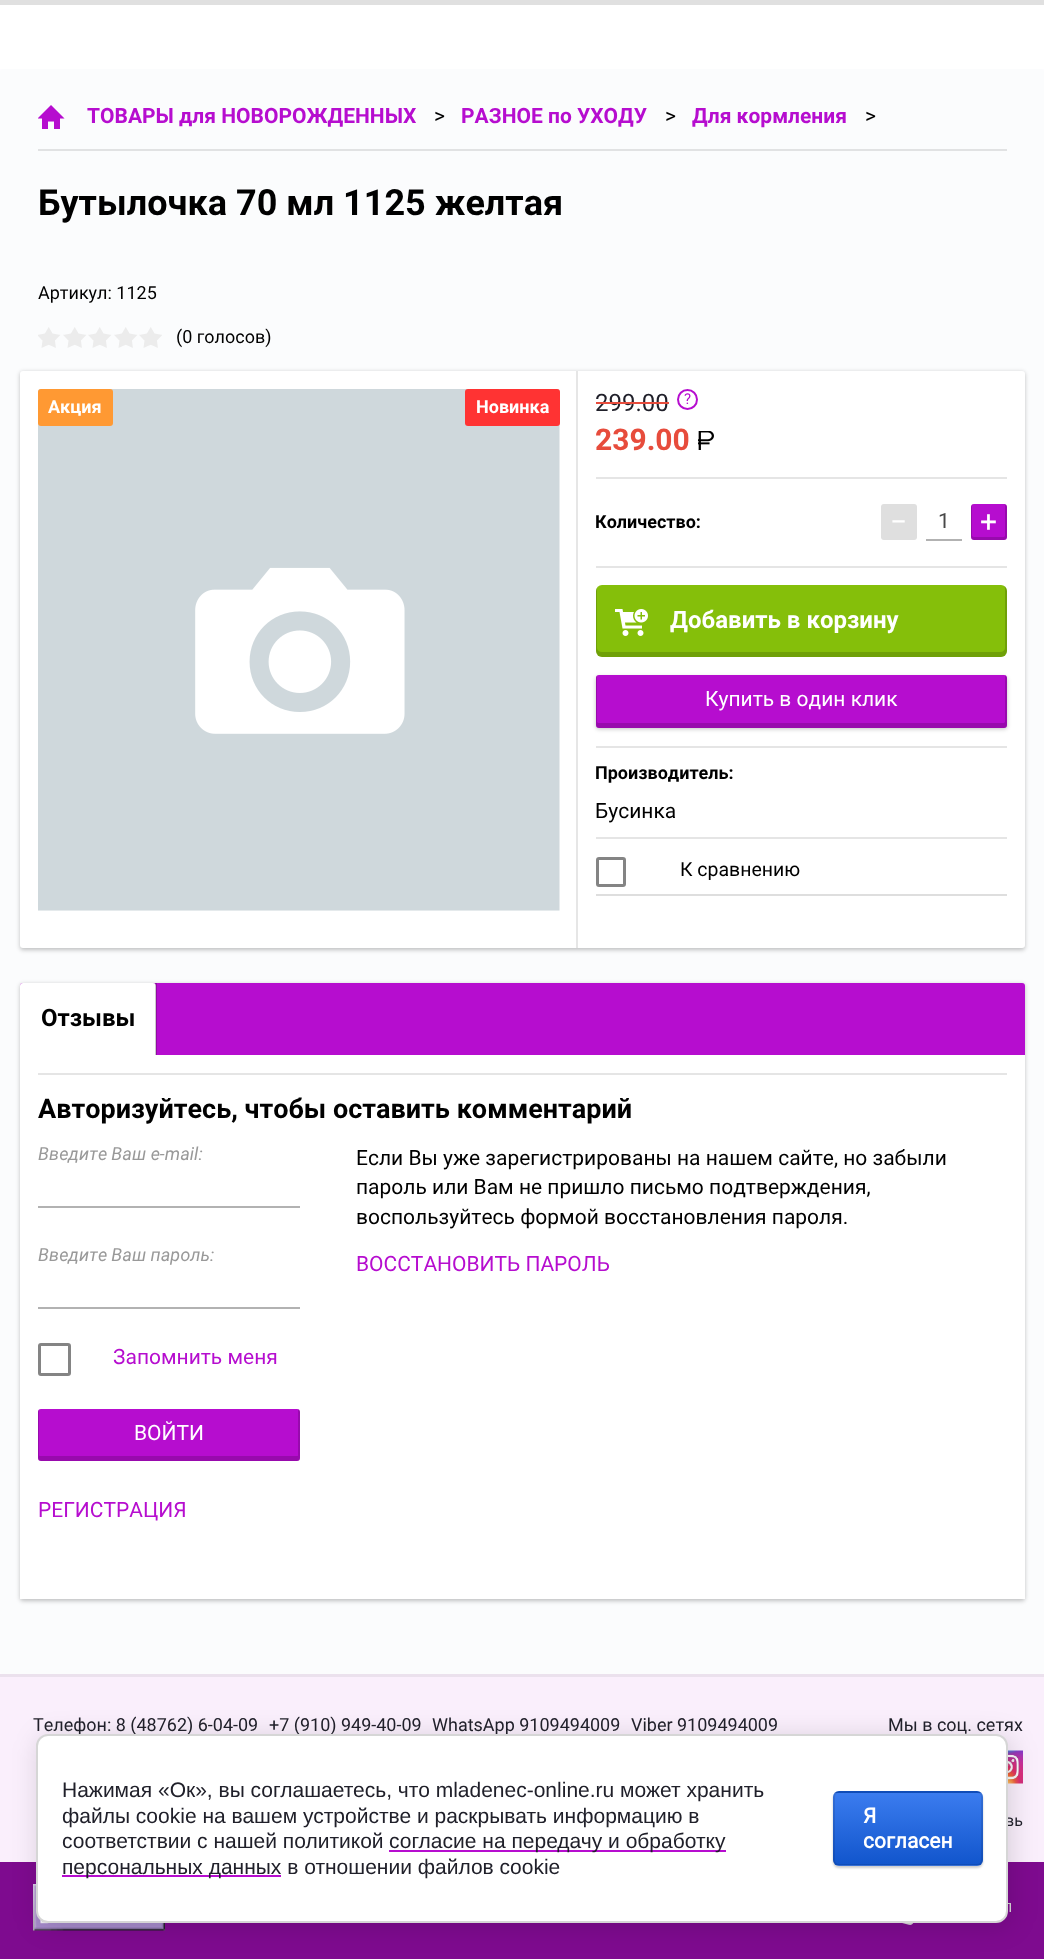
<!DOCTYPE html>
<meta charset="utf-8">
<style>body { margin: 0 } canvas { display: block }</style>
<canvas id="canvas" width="1044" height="1959"></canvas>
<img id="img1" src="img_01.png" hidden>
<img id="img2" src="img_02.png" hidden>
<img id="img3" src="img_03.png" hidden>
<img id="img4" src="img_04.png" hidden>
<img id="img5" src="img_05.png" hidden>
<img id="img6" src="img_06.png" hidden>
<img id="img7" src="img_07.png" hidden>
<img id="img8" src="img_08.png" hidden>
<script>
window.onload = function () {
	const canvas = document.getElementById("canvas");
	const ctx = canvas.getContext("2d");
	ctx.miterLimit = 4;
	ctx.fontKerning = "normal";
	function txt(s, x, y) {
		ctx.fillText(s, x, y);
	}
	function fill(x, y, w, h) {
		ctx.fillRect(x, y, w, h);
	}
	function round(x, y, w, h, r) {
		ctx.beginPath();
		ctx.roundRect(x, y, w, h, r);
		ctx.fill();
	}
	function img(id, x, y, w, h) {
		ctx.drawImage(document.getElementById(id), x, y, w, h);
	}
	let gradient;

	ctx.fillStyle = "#FEFBFF";
	fill(0, 0, 1044, 1959);
	ctx.fillStyle = "#FFFFFF";
	fill(0, 5, 1044, 64);
	ctx.fillStyle = "#E0E0E0";
	fill(0, 0, 1044, 5);
	ctx.fillStyle = "#FBFCFD";
	round(0, 69, 1044, 1605, 3);
	ctx.fillStyle = "#E1E2E3";
	fill(38, 149, 969, 2);
	img("img1", 38, 105, 27, 24);
	img("img2", 38, 327, 124, 21);
	ctx.fillStyle = "rgba(0, 0, 0, 0.24)";
	ctx.filter = "blur(2px)";
	ctx.beginPath();
	ctx.roundRect(20, 372, 1005, 578, 3);
	ctx.fill();
	ctx.filter = "none";
	ctx.fillStyle = "#FFFFFF";
	round(20, 371, 1005, 577, 3);
	img("img3", 38, 389, 522, 522);
	ctx.fillStyle = "#FF9933";
	round(38, 389, 75, 37, 3);
	ctx.fillStyle = "#FF3333";
	round(465, 389, 95, 37, 3);
	ctx.fillStyle = "#E6E6E6";
	fill(576, 371, 2, 577);
	ctx.beginPath();
	ctx.arc(687.5, 399.5, 9.5, 0, Math.PI * 2);
	ctx.strokeStyle = "#B60DCF";
	ctx.lineWidth = 2;
	ctx.stroke();
	img("img4", 698, 431, 16, 19);
	ctx.fillStyle = "#E5E5E5";
	fill(596, 477, 411, 2);
	fill(596, 566, 411, 2);
	ctx.fillStyle = "#DFDFDF";
	round(881, 504, 36, 36, 3);
	ctx.fillStyle = "#B2B2B2";
	fill(926, 539, 36, 2);
	ctx.fillStyle = "#B60DCF";
	round(971, 504, 36, 36, 3);
	ctx.fillStyle = "rgba(0, 0, 0, 0.16)";
	ctx.beginPath();
	ctx.moveTo(974, 504);
	ctx.bezierCurveTo(972.5, 504, 971, 505.5, 971, 507);
	ctx.lineTo(971, 537);
	ctx.bezierCurveTo(971, 538.5, 972.5, 540, 974, 540);
	ctx.lineTo(1004, 540);
	ctx.bezierCurveTo(1005.5, 540, 1007, 538.5, 1007, 537);
	ctx.lineTo(1007, 507);
	ctx.bezierCurveTo(1007, 505.5, 1005.5, 504, 1004, 504);
	ctx.lineTo(1005, 505.5);
	ctx.lineTo(1005, 536);
	ctx.lineTo(1004, 537);
	ctx.lineTo(973.5, 537);
	ctx.lineTo(972, 536);
	ctx.lineTo(972, 506);
	ctx.bezierCurveTo(972, 505, 973, 504, 974, 504);
	ctx.closePath();
	ctx.fill();
	ctx.fillStyle = "#85BF0A";
	round(596, 585, 411, 72, 6);
	ctx.fillStyle = "rgba(0, 0, 0, 0.16)";
	ctx.beginPath();
	ctx.moveTo(597, 588);
	ctx.bezierCurveTo(596, 589, 596, 590, 596, 591);
	ctx.lineTo(596, 651);
	ctx.bezierCurveTo(596, 654, 599, 657, 602, 657);
	ctx.lineTo(1001, 657);
	ctx.bezierCurveTo(1004, 657, 1007, 654, 1007, 651);
	ctx.lineTo(1007, 591);
	ctx.bezierCurveTo(1007, 589, 1006, 587, 1004, 586);
	ctx.lineTo(1005, 588);
	ctx.lineTo(1005, 648);
	ctx.bezierCurveTo(1005, 650, 1003, 652, 1000, 652);
	ctx.lineTo(602, 652);
	ctx.bezierCurveTo(599, 652, 597, 650, 597, 648);
	ctx.closePath();
	ctx.fill();
	img("img5", 615, 609, 33, 27);
	ctx.fillStyle = "rgba(0, 0, 0, 0.24)";
	ctx.filter = "blur(2px)";
	ctx.beginPath();
	ctx.roundRect(596, 677, 411, 52, 3);
	ctx.fill();
	ctx.filter = "none";
	ctx.fillStyle = "#B60DCF";
	round(596, 675, 411, 53, 3);
	ctx.fillStyle = "rgba(0, 0, 0, 0.16)";
	ctx.beginPath();
	ctx.moveTo(597, 676);
	ctx.bezierCurveTo(596, 676, 596, 677, 596, 678);
	ctx.lineTo(596, 725);
	ctx.bezierCurveTo(596, 727, 597, 728, 599, 728);
	ctx.lineTo(1004, 728);
	ctx.bezierCurveTo(1006, 728, 1007, 727, 1007, 725);
	ctx.lineTo(1007, 678);
	ctx.bezierCurveTo(1007, 677, 1006, 676, 1005, 675);
	ctx.lineTo(1005, 722);
	ctx.lineTo(1004, 723);
	ctx.lineTo(598, 723);
	ctx.lineTo(597, 722);
	ctx.closePath();
	ctx.fill();
	ctx.fillStyle = "#E5E5E5";
	fill(596, 746, 411, 2);
	fill(596, 837, 411, 2);
	ctx.fillStyle = "#DEDEDE";
	fill(596, 894, 411, 2);
	ctx.beginPath();
	ctx.roundRect(597.5, 858.5, 27, 27, 1.5);
	ctx.strokeStyle = "#848484";
	ctx.lineWidth = 3;
	ctx.stroke();
	ctx.fillStyle = "rgba(0, 0, 0, 0.24)";
	ctx.filter = "blur(2px)";
	ctx.beginPath();
	ctx.roundRect(20, 984, 1005, 617, 3);
	ctx.fill();
	ctx.filter = "none";
	ctx.fillStyle = "#B60DCF";
	round(20, 983, 1005, 616, 3);
	ctx.fillStyle = "#FFFFFF";
	ctx.beginPath();
	ctx.roundRect(20, 983, 136, 72, [3, 3, 0, 0]);
	ctx.fill();
	ctx.fillStyle = "rgba(0, 0, 0, 0.2)";
	fill(155, 983, 2, 72);
	ctx.fillStyle = "#FFFFFF";
	fill(20, 1055, 1005, 544);
	ctx.fillStyle = "#E5E5E5";
	fill(38, 1073, 969, 2);
	ctx.fillStyle = "#B2B2B2";
	fill(38, 1206, 262, 2);
	fill(38, 1307, 262, 2);
	ctx.beginPath();
	ctx.roundRect(39.5, 1344.5, 30, 30, 1.5);
	ctx.stroke();
	ctx.fillStyle = "#B60DCF";
	round(38, 1409, 262, 52, 3);
	ctx.fillStyle = "rgba(0, 0, 0, 0.16)";
	ctx.beginPath();
	ctx.moveTo(39, 1410);
	ctx.bezierCurveTo(38, 1410, 38, 1411, 38, 1412);
	ctx.lineTo(38, 1458);
	ctx.bezierCurveTo(38, 1460, 39, 1461, 41, 1461);
	ctx.lineTo(297, 1461);
	ctx.bezierCurveTo(299, 1461, 300, 1460, 300, 1458);
	ctx.lineTo(300, 1412);
	ctx.bezierCurveTo(300, 1411, 299, 1410, 298, 1409);
	ctx.lineTo(298, 1455);
	ctx.bezierCurveTo(298, 1456, 298, 1456, 297, 1456);
	ctx.lineTo(40, 1456);
	ctx.bezierCurveTo(40, 1456, 39, 1456, 39, 1455);
	ctx.closePath();
	ctx.fill();
	ctx.fillStyle = "#FAEFFC";
	fill(0, 1677, 1044, 185);
	ctx.fillStyle = "#EBE1ED";
	fill(0, 1674, 1044, 3);
	img("img6", 1008, 1750, 15, 34);
	ctx.fillStyle = "#7E0B8F";
	fill(0, 1862, 1044, 97);
	img("img7", 33, 1884, 132, 47);
	img("img8", 902, 1903, 109, 22);
	ctx.fillStyle = "rgba(0, 0, 0, 0.14)";
	ctx.filter = "blur(13.5px)";
	ctx.beginPath();
	ctx.roundRect(39, 1737, 972, 189, 12);
	ctx.fill();
	ctx.filter = "none";
	ctx.font = "bold 21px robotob";
	ctx.fillStyle = "#B60DCF";
	txt("ТОВАРЫ для НОВОРОЖДЕННЫХ", 87, 123);
	ctx.font = "21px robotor";
	ctx.fillStyle = "#000000";
	txt(">", 434, 123);
	ctx.font = "bold 21px robotob";
	ctx.fillStyle = "#B60DCF";
	txt("РАЗНОЕ по УХОДУ", 461, 123);
	ctx.font = "21px robotor";
	ctx.fillStyle = "#000000";
	txt(">", 665, 123);
	ctx.font = "bold 21px robotob";
	ctx.fillStyle = "#B60DCF";
	txt("Для кормления", 692, 123);
	ctx.font = "21px robotor";
	ctx.fillStyle = "#000000";
	txt(">", 865, 123);
	ctx.font = "bold 36px robotob";
	txt("Бутылочка 70 мл 1125 желтая", 38, 215);
	ctx.font = "18px robotor";
	txt("Артикул: 1125", 38, 299);
	txt("(0 голосов)", 176, 343);
	ctx.font = "bold 18px robotob";
	ctx.fillStyle = "#FFFFFF";
	txt("Акция", 48, 413);
	txt("Новинка", 476, 413);
	ctx.font = "24px robotor";
	ctx.fillStyle = "#20202A";
	txt("299.00", 595, 411);
	ctx.fillStyle = "#E74C3C";
	fill(596, 402, 73, 2);
	ctx.font = "15px robotor";
	ctx.fillStyle = "#B60DCF";
	txt("?", 684, 404);
	ctx.font = "bold 30px robotob";
	ctx.fillStyle = "#E74C3C";
	txt("239.00", 595, 450);
	ctx.font = "bold 18px robotob";
	ctx.fillStyle = "#000000";
	txt("Количество:", 595, 528);
	ctx.font = "30px robotor";
	ctx.fillStyle = "#FFFFFF";
	txt("−", 890, 532);
	ctx.font = "21px robotor";
	ctx.fillStyle = "#484848";
	txt("1", 938, 528);
	ctx.font = "30px robotor";
	ctx.fillStyle = "#FFFFFF";
	txt("+", 980, 532);
	ctx.font = "bold 24px robotob";
	txt("Добавить в корзину", 670, 628);
	ctx.font = "21px robotor";
	txt("Купить в один клик", 705, 706);
	ctx.font = "bold 18px robotob";
	ctx.fillStyle = "#000000";
	txt("Производитель:", 595, 779);
	ctx.font = "21px robotor";
	txt("Бусинка", 595, 818);
	ctx.font = "19.5px robotor";
	txt("К сравнению", 680, 876);
	ctx.font = "bold 24px robotob";
	txt("Отзывы", 41, 1026);
	ctx.font = "bold 27px robotob";
	txt("Авторизуйтесь, чтобы оставить комментарий", 38, 1118);
	ctx.font = "italic 18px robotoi";
	ctx.fillStyle = "#999999";
	txt("Введите Ваш e-mail:", 38, 1160);
	txt("Введите Ваш пароль:", 38, 1261);
	ctx.font = "21px robotor";
	ctx.fillStyle = "#B60DCF";
	txt("Запомнить меня", 113, 1364);
	ctx.fillStyle = "#FFFFFF";
	txt("ВОЙТИ", 134, 1440);
	ctx.fillStyle = "#B60DCF";
	txt("РЕГИСТРАЦИЯ", 38, 1517);
	ctx.fillStyle = "#000000";
	txt("Если Вы уже зарегистрированы на нашем сайте, но забыли", 356, 1165);
	txt("пароль или Вам не пришло письмо подтверждения,", 356, 1194);
	txt("воспользуйтесь формой восстановления пароля.", 356, 1224);
	ctx.fillStyle = "#B60DCF";
	txt("ВОССТАНОВИТЬ ПАРОЛЬ", 356, 1271);
	ctx.font = "18px robotor";
	ctx.fillStyle = "#20202A";
	txt("Телефон: 8 (48762) 6-04-09", 33, 1731);
	txt("+7 (910) 949-40-09", 269, 1731);
	txt("WhatsApp 9109494009", 432, 1731);
	txt("Viber 9109494009", 631, 1731);
	txt("Мы в соц. сетях", 888, 1731);
	ctx.font = "16px robotor";
	txt("вь", 1005, 1826);
	ctx.fillStyle = "#FFFFFF";
	ctx.beginPath();
	ctx.roundRect(37, 1735, 970, 187, 11);
	ctx.fill();
	ctx.strokeStyle = "#D6D6D6";
	ctx.lineWidth = 2;
	ctx.stroke();
	ctx.font = "21px Liberation Sans";
	ctx.fillStyle = "#20202A";
	txt("Нажимая «Ок», вы соглашаетесь, что mladenec-online.ru может хранить", 62, 1797);
	txt("файлы cookie на вашем устройстве и раскрывать информацию в", 62, 1823);
	txt("соответствии с нашей политикой", 62, 1848);
	ctx.fillStyle = "#B60DCF";
	fill(389, 1850, 337, 2);
	ctx.fillStyle = "#20202A";
	txt("согласие на передачу и обработку", 389, 1848);
	ctx.fillStyle = "#B60DCF";
	fill(62, 1875, 219, 2);
	ctx.fillStyle = "#20202A";
	txt("персональных данных в отношении файлов cookie", 62, 1874);
	ctx.fillStyle = "rgba(0, 0, 0, 0.2)";
	ctx.filter = "blur(1px)";
	ctx.beginPath();
	ctx.roundRect(833, 1793, 150, 75, 6);
	ctx.fill();
	ctx.filter = "none";
	ctx.save();
	ctx.beginPath();
	ctx.roundRect(833, 1791, 150, 75, 6);
	ctx.clip();
	gradient = ctx.createLinearGradient(908, 1721, 908, 1793);
	gradient.addColorStop(0, "#3B7CEF");
	gradient.addColorStop(1, "#1155CC");
	ctx.fillStyle = gradient;
	fill(833, 1791, 150, 2);
	gradient = ctx.createLinearGradient(908, 1793, 908, 1865);
	gradient.addColorStop(0, "#3B7CEF");
	gradient.addColorStop(1, "#1155CC");
	ctx.fillStyle = gradient;
	fill(833, 1793, 150, 72);
	gradient = ctx.createLinearGradient(908, 1865, 908, 1937);
	gradient.addColorStop(0, "#3B7CEF");
	gradient.addColorStop(1, "#1155CC");
	ctx.fillStyle = gradient;
	fill(833, 1865, 150, 1);
	ctx.restore();
	ctx.beginPath();
	ctx.roundRect(834, 1792, 148, 73, 5);
	ctx.strokeStyle = "rgba(0, 0, 0, 0.1)";
	ctx.stroke();
	ctx.font = "bold 21px robotor";
	ctx.fillStyle = "#FFFFFF";
	txt("Я", 863, 1823);
	txt("согласен", 863, 1848);
};
</script>
